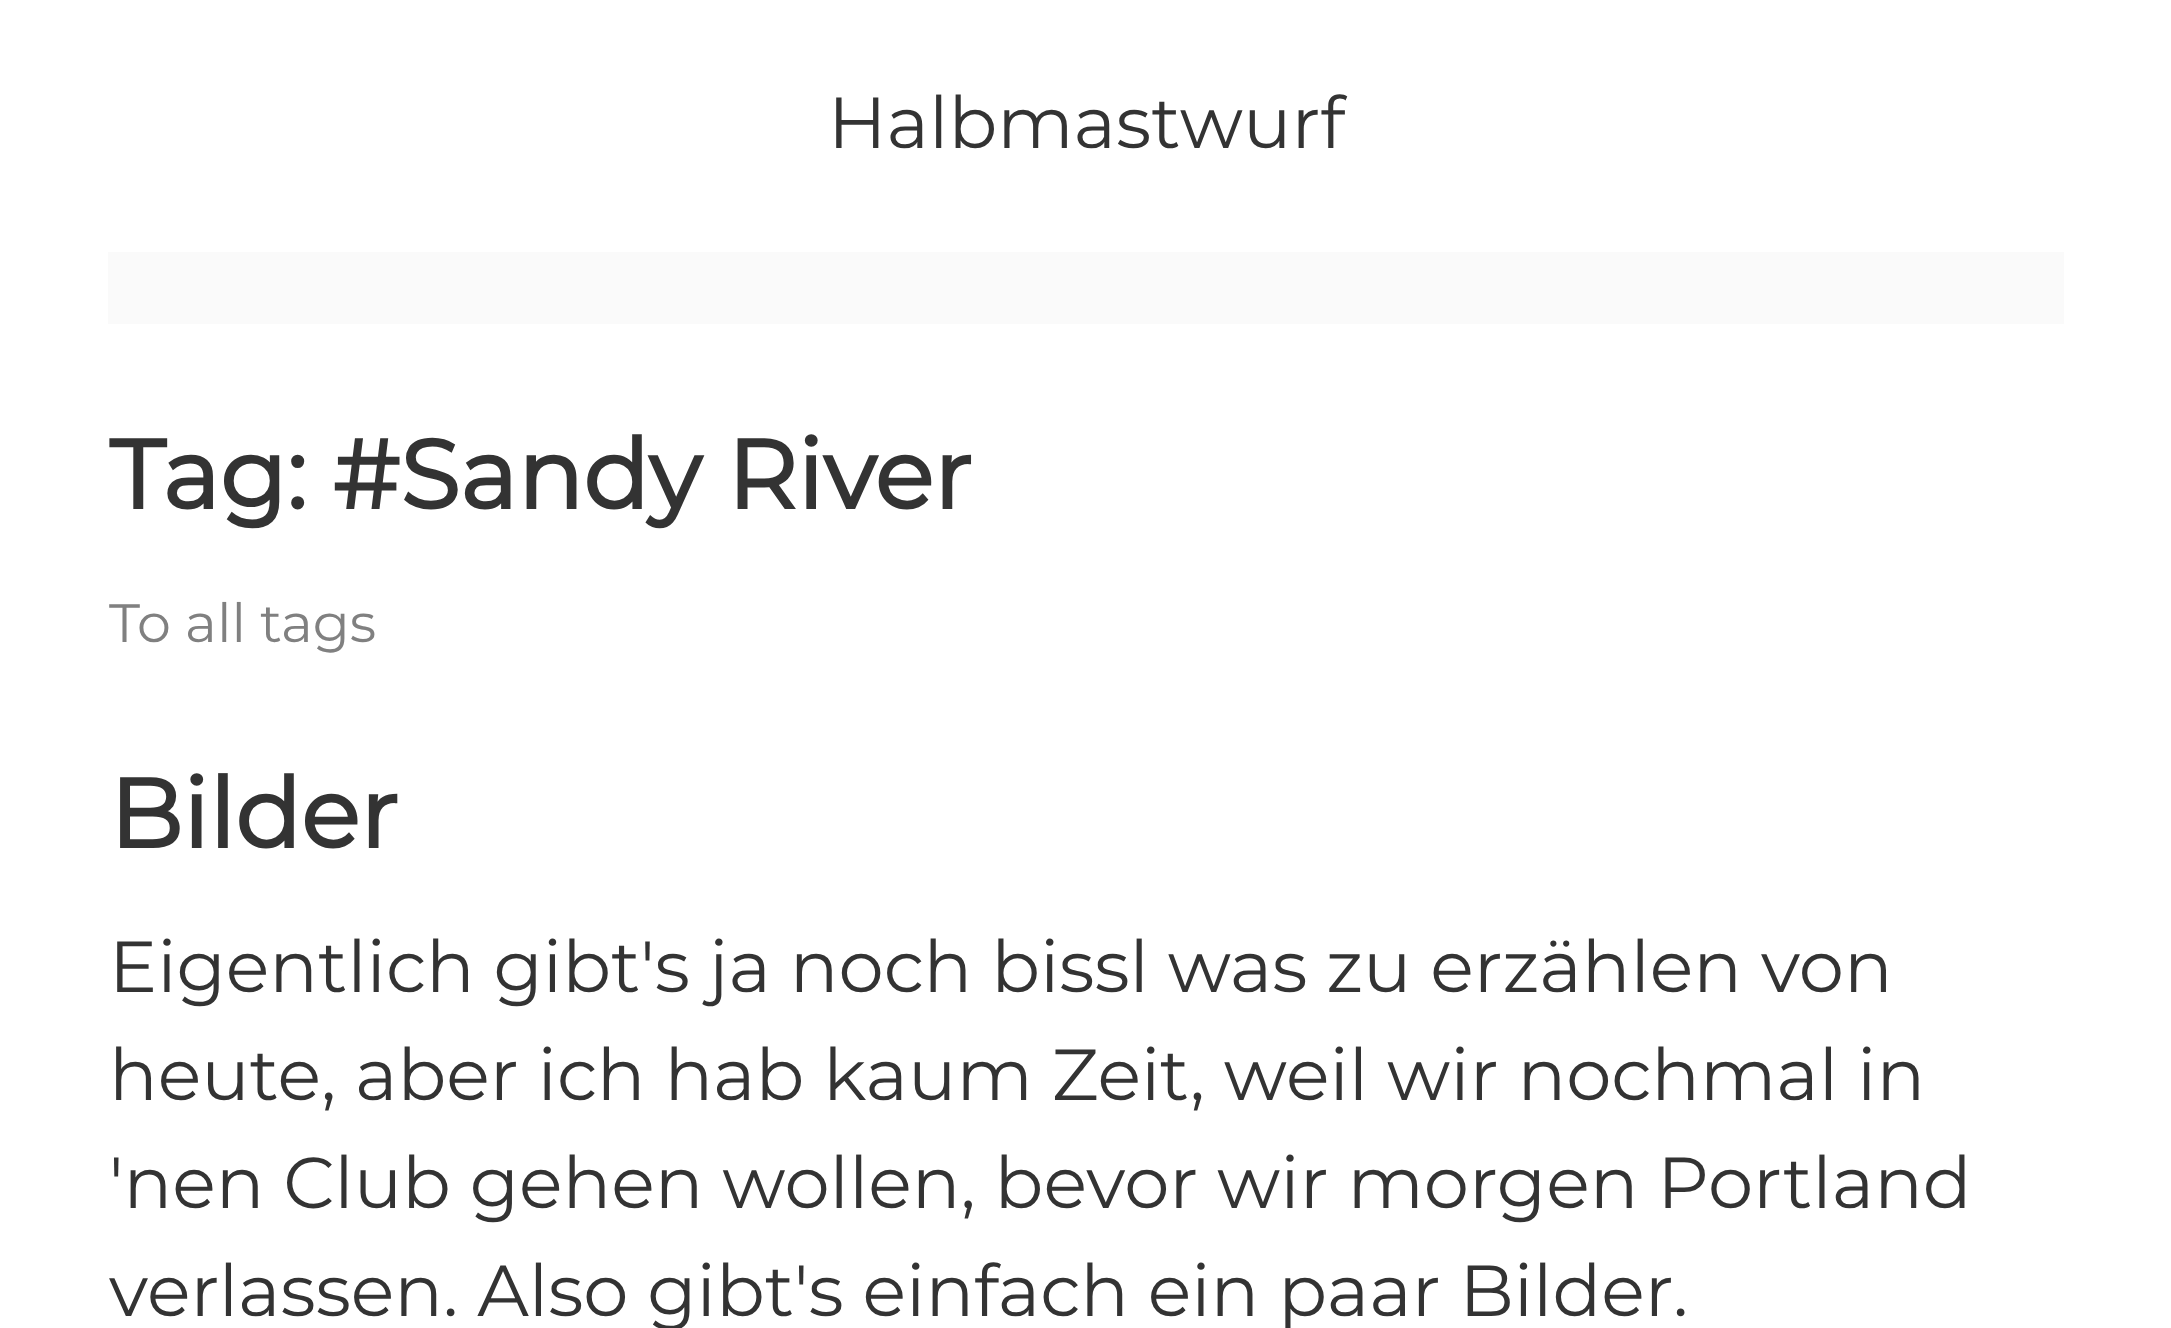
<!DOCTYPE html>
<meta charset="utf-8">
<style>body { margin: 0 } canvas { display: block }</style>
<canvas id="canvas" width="2171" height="1328"></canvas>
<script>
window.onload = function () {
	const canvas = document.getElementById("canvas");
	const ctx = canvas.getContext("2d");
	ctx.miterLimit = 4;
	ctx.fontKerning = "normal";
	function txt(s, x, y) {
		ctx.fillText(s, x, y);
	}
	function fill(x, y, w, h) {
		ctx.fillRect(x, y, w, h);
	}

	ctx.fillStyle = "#FFFFFF";
	fill(0, 0, 2171, 1328);
	ctx.fillStyle = "#FAFAFA";
	fill(108, 252, 1956, 72);
	ctx.font = "100 72px Montserrat";
	ctx.fillStyle = "#333333";
	txt("Halbmastwurf", 828, 148);
	ctx.font = "bold 97.25px Montserrat";
	txt("Tag: #Sandy River", 109, 509);
	ctx.font = "100 54px Montserrat";
	ctx.fillStyle = "#808080";
	txt("To all tags", 109, 642);
	ctx.font = "bold 97.25px Montserrat";
	ctx.fillStyle = "#333333";
	txt("Bilder", 109, 848);
	ctx.font = "100 72px Montserrat";
	txt("Eigentlich gibt's ja noch bissl was zu erzählen von", 109, 992);
	txt("heute, aber ich hab kaum Zeit, weil wir nochmal in", 109, 1100);
	txt("'nen Club gehen wollen, bevor wir morgen Portland", 109, 1208);
	txt("verlassen. Also gibt's einfach ein paar Bilder.", 109, 1316);
};
</script>
